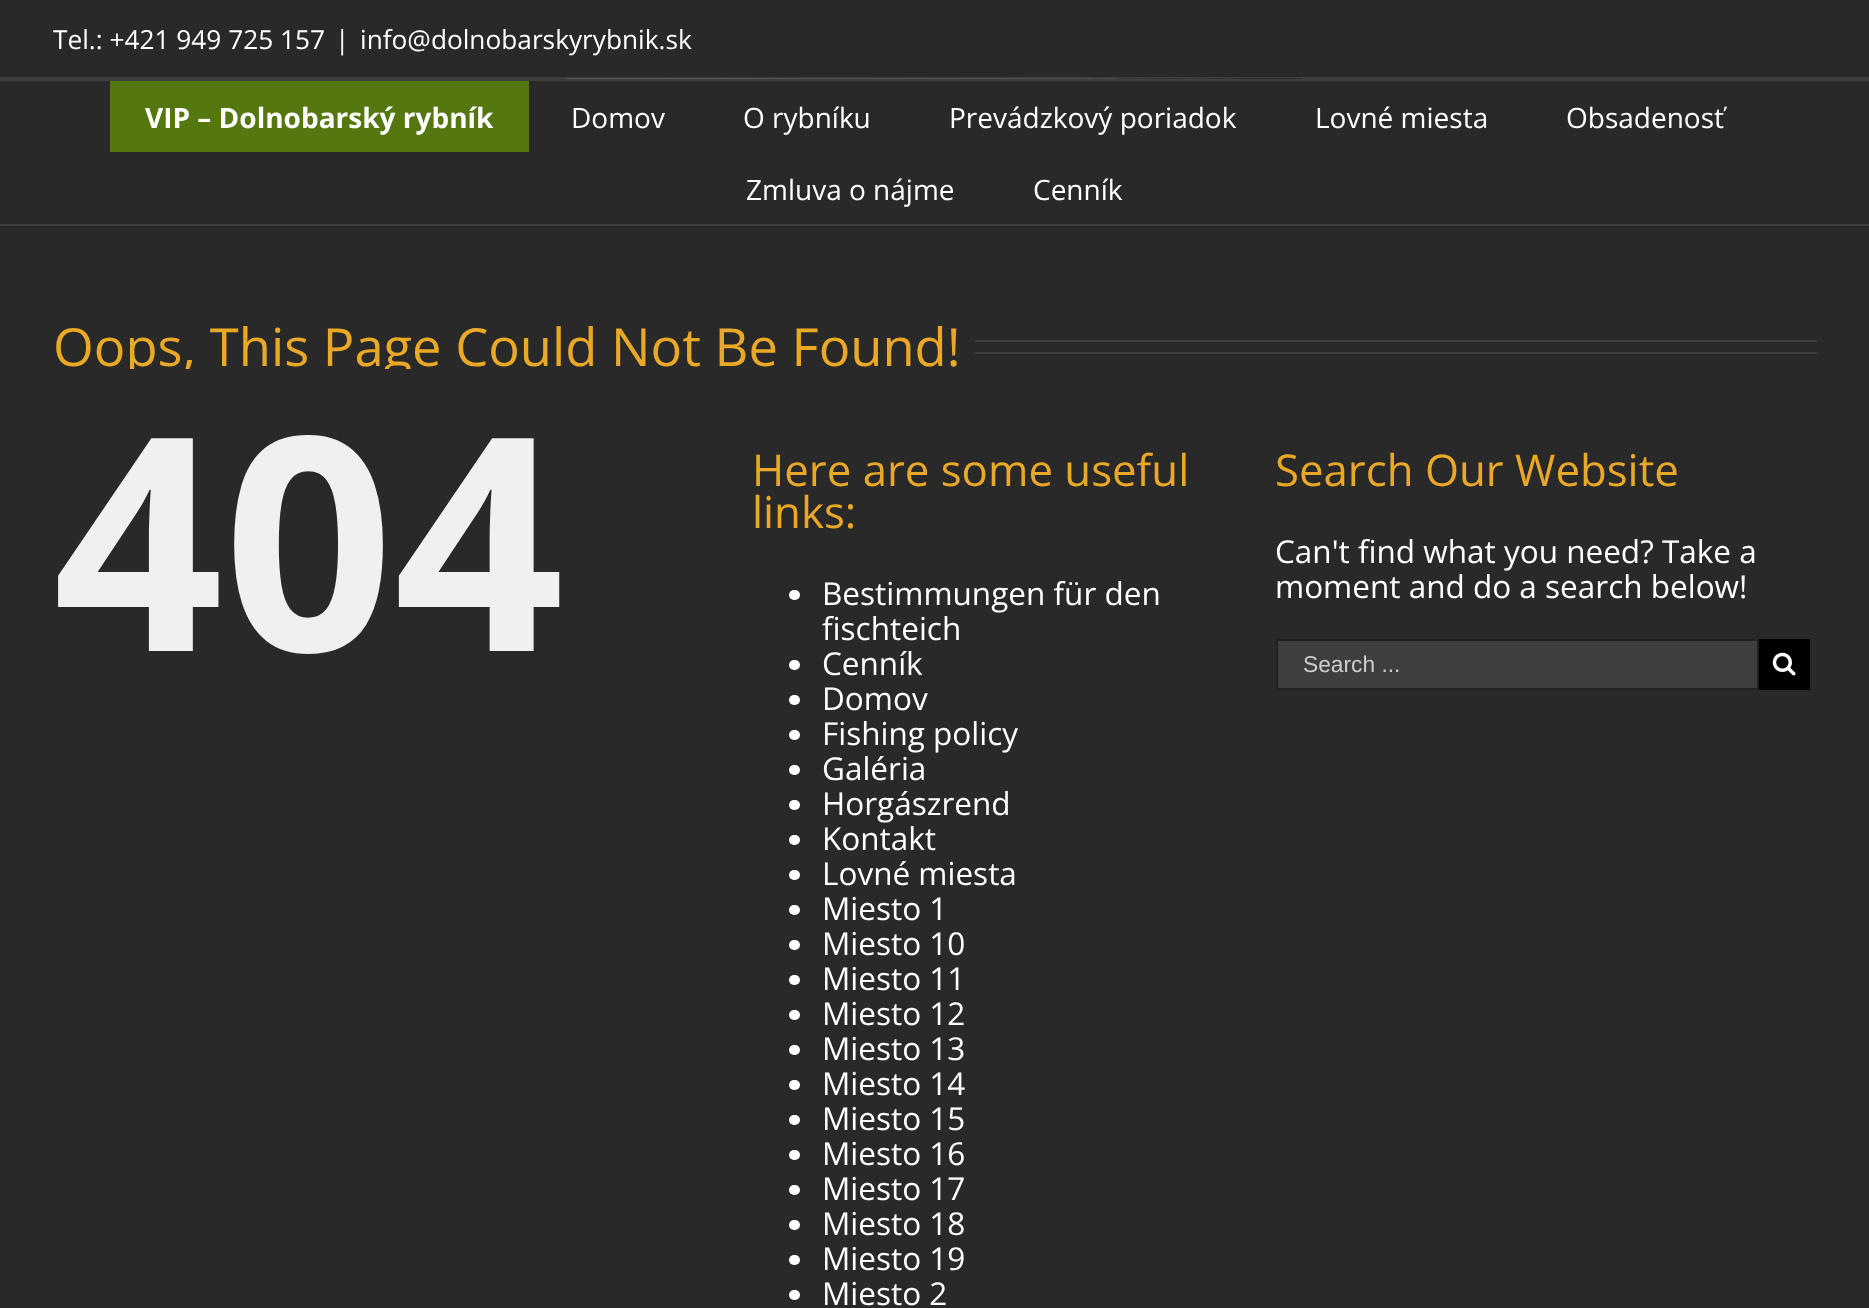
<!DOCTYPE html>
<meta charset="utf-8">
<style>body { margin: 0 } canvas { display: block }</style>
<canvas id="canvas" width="1869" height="1308"></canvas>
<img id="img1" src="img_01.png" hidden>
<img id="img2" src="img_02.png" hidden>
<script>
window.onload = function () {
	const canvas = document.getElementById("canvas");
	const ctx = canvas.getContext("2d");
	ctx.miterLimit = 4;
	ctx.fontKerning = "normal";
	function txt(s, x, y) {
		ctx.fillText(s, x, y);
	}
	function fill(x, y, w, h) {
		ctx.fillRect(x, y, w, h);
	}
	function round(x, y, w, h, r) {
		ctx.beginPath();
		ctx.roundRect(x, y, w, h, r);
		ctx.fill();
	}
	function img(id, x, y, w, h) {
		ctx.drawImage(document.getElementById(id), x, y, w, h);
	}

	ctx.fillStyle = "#29292A";
	fill(0, 0, 1869, 1308);
	ctx.fillStyle = "#3E3E3E";
	fill(0, 77, 1869, 4);
	img("img1", 567, 78, 735, 1);
	fill(0, 224, 1869, 2);
	ctx.fillStyle = "#54770F";
	fill(110, 81, 419, 71);
	ctx.fillStyle = "#3E3E3E";
	fill(975, 340, 842, 2);
	fill(975, 352, 842, 2);
	ctx.fillStyle = "#FFFFFF";
	round(789, 590, 11, 10, 5);
	round(789, 660, 11, 10, 5);
	round(789, 695, 11, 10, 5);
	round(789, 730, 11, 10, 5);
	round(789, 765, 11, 10, 5);
	round(789, 800, 11, 10, 5);
	round(789, 835, 11, 10, 5);
	round(789, 870, 11, 10, 5);
	round(789, 905, 11, 10, 5);
	round(789, 940, 11, 10, 5);
	round(789, 975, 11, 10, 5);
	round(789, 1010, 11, 10, 5);
	round(789, 1045, 11, 10, 5);
	round(789, 1080, 11, 10, 5);
	round(789, 1115, 11, 10, 5);
	round(789, 1150, 11, 10, 5);
	round(789, 1185, 11, 10, 5);
	round(789, 1220, 11, 10, 5);
	round(789, 1255, 11, 10, 5);
	round(789, 1290, 11, 10, 5);
	ctx.fillStyle = "#3E3E3E";
	ctx.beginPath();
	ctx.rect(1277, 640, 481, 49);
	ctx.fill();
	ctx.strokeStyle = "#212122";
	ctx.lineWidth = 2;
	ctx.stroke();
	ctx.fillStyle = "#000000";
	fill(1759, 639, 51, 51);
	img("img2", 1772, 652, 24, 24);
	ctx.font = "26.25px Open Sans";
	ctx.fillStyle = "#FFFFFF";
	txt("Tel.: +421 949 725 157", 53, 49);
	txt("|", 335, 49);
	txt("info@dolnobarskyrybnik.sk", 360, 49);
	ctx.font = "bold 28px Open Sans";
	txt("VIP – Dolnobarský rybník", 145, 128);
	ctx.font = "28px Open Sans";
	txt("Domov", 571, 128);
	txt("O rybníku", 743, 128);
	txt("Prevádzkový poriadok", 949, 128);
	txt("Lovné miesta", 1315, 128);
	txt("Obsadenosť", 1566, 128);
	txt("Zmluva o nájme", 746, 200);
	txt("Cenník", 1033, 200);
	ctx.save();
	ctx.beginPath();
	ctx.rect(53, 322, 1764, 47);
	ctx.clip();
	ctx.font = "52.5px Open Sans";
	ctx.fillStyle = "#E9A825";
	txt("Oops, This Page Could Not Be Found!", 53, 366);
	ctx.restore();
	ctx.font = "bold 298px Open Sans";
	ctx.fillStyle = "#F0F0F0";
	txt("404", 53, 651);
	ctx.font = "43.75px Open Sans";
	ctx.fillStyle = "#E9A825";
	txt("Here are some useful", 752, 486);
	txt("links:", 752, 528);
	ctx.font = "31.5px Open Sans";
	ctx.fillStyle = "#FFFFFF";
	txt("Bestimmungen für den", 822, 605);
	txt("fischteich", 822, 640);
	txt("Cenník", 822, 675);
	txt("Domov", 822, 710);
	txt("Fishing policy", 822, 745);
	txt("Galéria", 822, 780);
	txt("Horgászrend", 822, 815);
	txt("Kontakt", 822, 850);
	txt("Lovné miesta", 822, 885);
	txt("Miesto 1", 822, 920);
	txt("Miesto 10", 822, 955);
	txt("Miesto 11", 822, 990);
	txt("Miesto 12", 822, 1025);
	txt("Miesto 13", 822, 1060);
	txt("Miesto 14", 822, 1095);
	txt("Miesto 15", 822, 1130);
	txt("Miesto 16", 822, 1165);
	txt("Miesto 17", 822, 1200);
	txt("Miesto 18", 822, 1235);
	txt("Miesto 19", 822, 1270);
	txt("Miesto 2", 822, 1305);
	ctx.font = "43.75px Open Sans";
	ctx.fillStyle = "#E9A825";
	txt("Search Our Website", 1275, 486);
	ctx.font = "31.5px Open Sans";
	ctx.fillStyle = "#FFFFFF";
	txt("Can't find what you need? Take a", 1275, 563);
	txt("moment and do a search below!", 1275, 598);
	ctx.font = "22.75px Liberation Sans";
	ctx.fillStyle = "#CCCCCC";
	txt("Search ...", 1303, 672);
};
</script>
